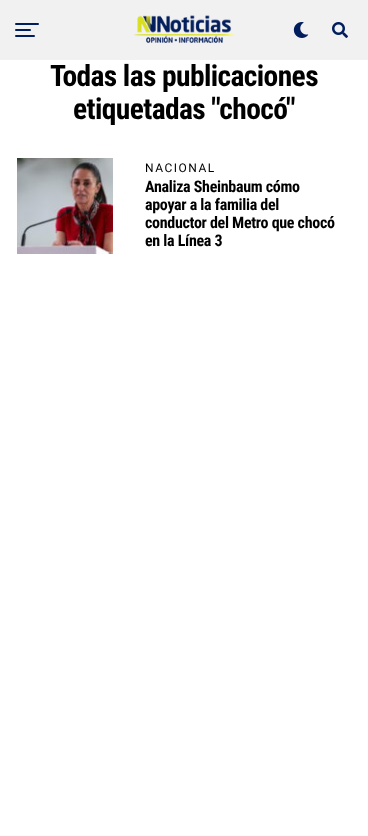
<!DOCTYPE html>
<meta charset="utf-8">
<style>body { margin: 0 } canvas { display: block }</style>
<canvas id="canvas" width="368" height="836"></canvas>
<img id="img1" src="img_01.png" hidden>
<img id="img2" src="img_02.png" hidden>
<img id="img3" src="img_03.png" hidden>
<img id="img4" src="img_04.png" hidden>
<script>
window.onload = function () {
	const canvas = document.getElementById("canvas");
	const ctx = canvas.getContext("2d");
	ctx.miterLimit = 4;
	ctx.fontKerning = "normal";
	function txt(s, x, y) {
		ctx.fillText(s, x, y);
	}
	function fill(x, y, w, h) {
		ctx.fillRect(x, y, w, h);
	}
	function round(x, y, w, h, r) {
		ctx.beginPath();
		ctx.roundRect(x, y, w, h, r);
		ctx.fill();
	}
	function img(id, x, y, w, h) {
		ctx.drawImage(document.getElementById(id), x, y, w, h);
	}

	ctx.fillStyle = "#FFFFFF";
	fill(0, 0, 368, 836);
	ctx.fillStyle = "#F1F1F1";
	fill(0, 0, 368, 60);
	ctx.fillStyle = "#001E5C";
	round(15, 23, 24, 2, 1);
	round(15, 29, 16, 2, 1);
	round(15, 35, 20, 2, 1);
	img("img1", 134, 15, 101, 28);
	img("img2", 293, 22, 16, 16);
	img("img3", 332, 22, 16, 16);
	img("img4", 17, 158, 96, 96);
	ctx.letterSpacing = "-0.6px";
	ctx.font = "bold 29.5px Roboto Condensed";
	ctx.fillStyle = "#000000";
	txt("Todas las publicaciones", 50, 86);
	txt("etiquetadas \"chocó\"", 73, 119);
	ctx.letterSpacing = "1.5px";
	ctx.font = "12px Roboto";
	txt("NACIONAL", 145, 172);
	ctx.letterSpacing = "-0.3px";
	ctx.font = "bold 16px Roboto Condensed";
	txt("Analiza Sheinbaum cómo", 145, 192);
	txt("apoyar a la familia del", 145, 210);
	txt("conductor del Metro que chocó", 145, 228);
	txt("en la Línea 3", 145, 246);
};
</script>
